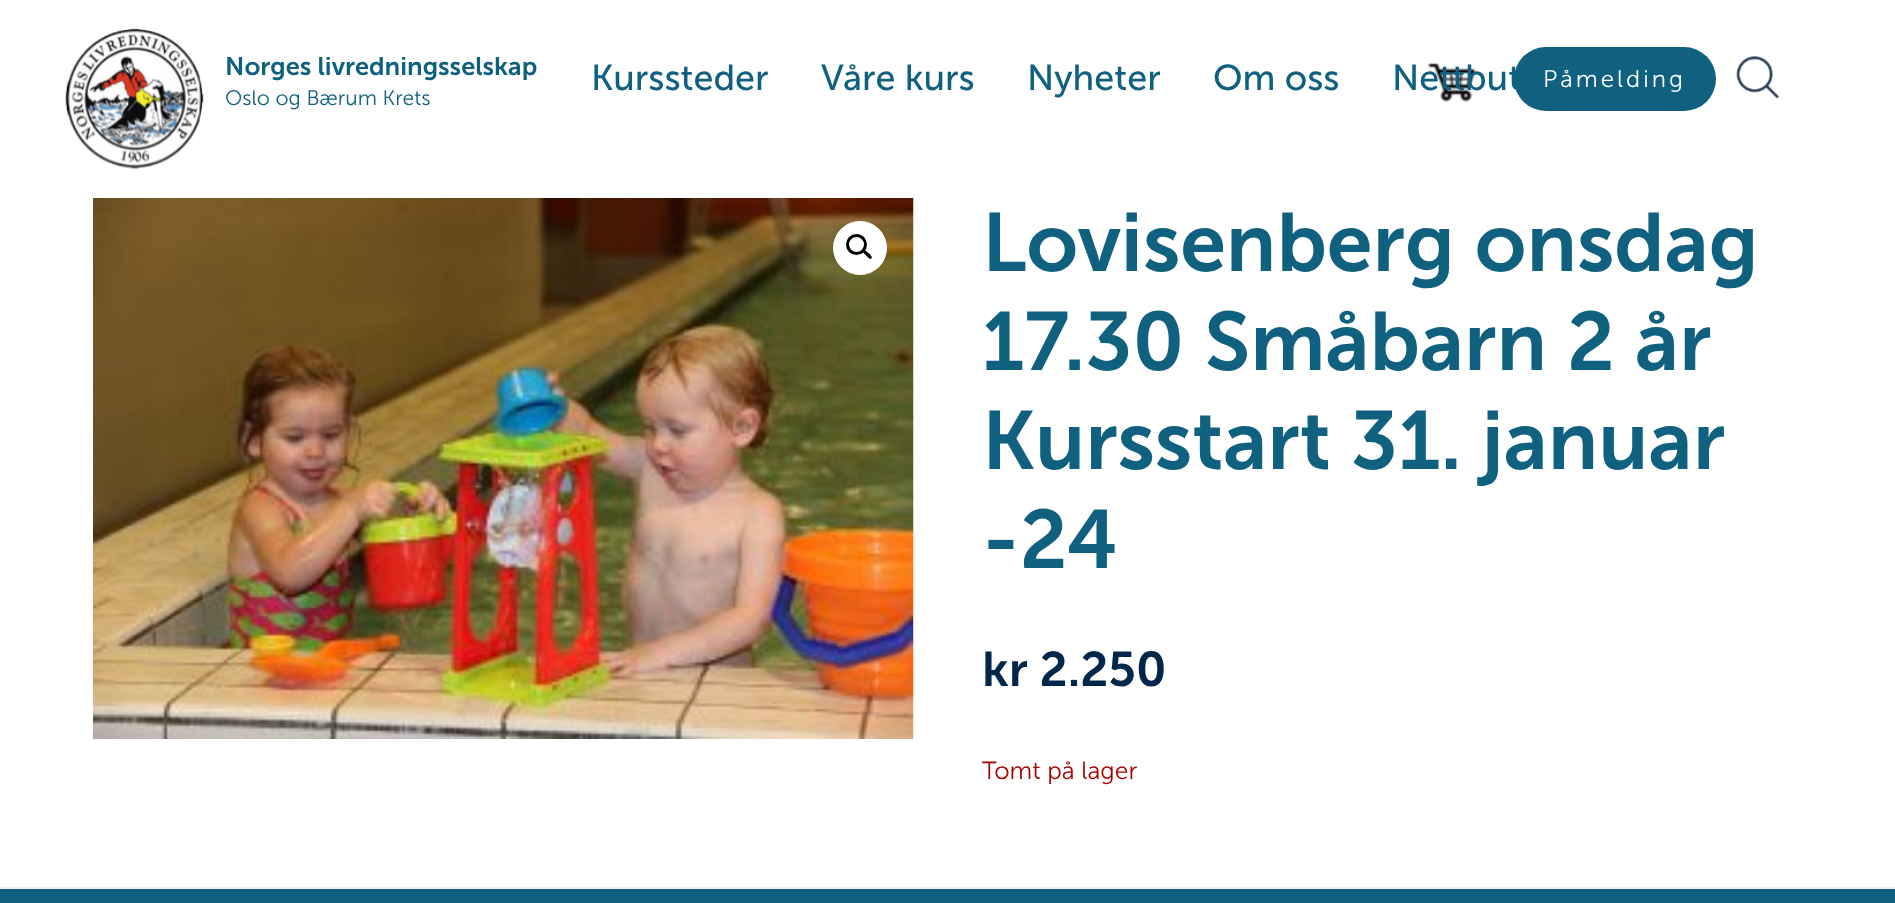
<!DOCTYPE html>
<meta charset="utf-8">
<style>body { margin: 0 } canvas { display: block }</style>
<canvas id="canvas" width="1895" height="903"></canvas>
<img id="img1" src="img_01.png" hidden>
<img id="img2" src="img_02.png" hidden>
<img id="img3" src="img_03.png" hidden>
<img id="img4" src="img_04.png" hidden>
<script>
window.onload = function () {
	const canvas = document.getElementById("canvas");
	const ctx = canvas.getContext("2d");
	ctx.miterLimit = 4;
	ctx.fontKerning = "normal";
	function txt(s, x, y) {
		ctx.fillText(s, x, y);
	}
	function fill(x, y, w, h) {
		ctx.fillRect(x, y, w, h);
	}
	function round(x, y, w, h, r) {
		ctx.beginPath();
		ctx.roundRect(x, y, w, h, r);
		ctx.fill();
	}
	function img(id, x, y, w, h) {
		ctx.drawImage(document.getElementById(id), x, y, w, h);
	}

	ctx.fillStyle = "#FFFFFF";
	fill(0, 0, 1895, 903);
	img("img1", 65, 28, 139, 141);
	img("img2", 1427, 63, 50, 40);
	ctx.fillStyle = "#106180";
	round(1514, 47, 202, 64, 32);
	img("img3", 1736, 56, 43, 43);
	img("img4", 93, 198, 821, 541);
	ctx.fillStyle = "#FFFFFF";
	ctx.beginPath();
	ctx.arc(860, 248, 27, 0, Math.PI * 2);
	ctx.fill();
	ctx.beginPath();
	ctx.arc(856.5, 244.5, 9, 0, Math.PI * 2);
	ctx.strokeStyle = "#000000";
	ctx.lineWidth = 3;
	ctx.stroke();
	ctx.fillStyle = "#000000";
	ctx.beginPath();
	ctx.moveTo(863, 250);
	ctx.bezierCurveTo(864.5, 248.5, 867.5, 252.5, 868.5, 253);
	ctx.bezierCurveTo(869.5, 254, 873, 257, 871.5, 258.5);
	ctx.bezierCurveTo(870, 260, 867, 256.5, 866, 255.5);
	ctx.bezierCurveTo(865.5, 254.5, 861.5, 252, 863, 250);
	ctx.closePath();
	ctx.fill();
	ctx.fillStyle = "#106180";
	fill(0, 889, 1895, 14);
	ctx.fillStyle = "#EEEEEE";
	fill(0, 887, 1895, 2);
	ctx.font = "600 25.5px 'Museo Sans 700'";
	ctx.fillStyle = "#106180";
	txt("Norges livredningsselskap", 225, 75);
	ctx.font = "300 21px 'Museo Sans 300'";
	txt("Oslo og Bærum Krets", 225, 105);
	ctx.font = "36px 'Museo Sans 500'";
	txt("Kurssteder", 591, 90);
	txt("Våre kurs", 821, 90);
	txt("Nyheter", 1027, 90);
	txt("Om oss", 1213, 90);
	txt("Nettbut", 1392, 90);
	ctx.letterSpacing = "3px";
	ctx.font = "300 24px 'Museo Sans 300'";
	ctx.fillStyle = "#FFFFFF";
	txt("Påmelding", 1543, 87);
	ctx.letterSpacing = "0px";
	ctx.font = "600 82.5px 'Museo Sans 700'";
	ctx.fillStyle = "#106180";
	txt("Lovisenberg onsdag", 982, 271);
	txt("17.30 Småbarn 2 år", 982, 370);
	txt("Kursstart 31. januar", 982, 469);
	txt("-24", 982, 568);
	ctx.font = "600 48.5px 'Museo Sans 700'";
	ctx.fillStyle = "#002649";
	txt("kr 2.250", 982, 686);
	ctx.font = "300 24.75px 'Museo Sans 300'";
	ctx.fillStyle = "#AA0000";
	txt("Tomt på lager", 982, 779);
};
</script>
